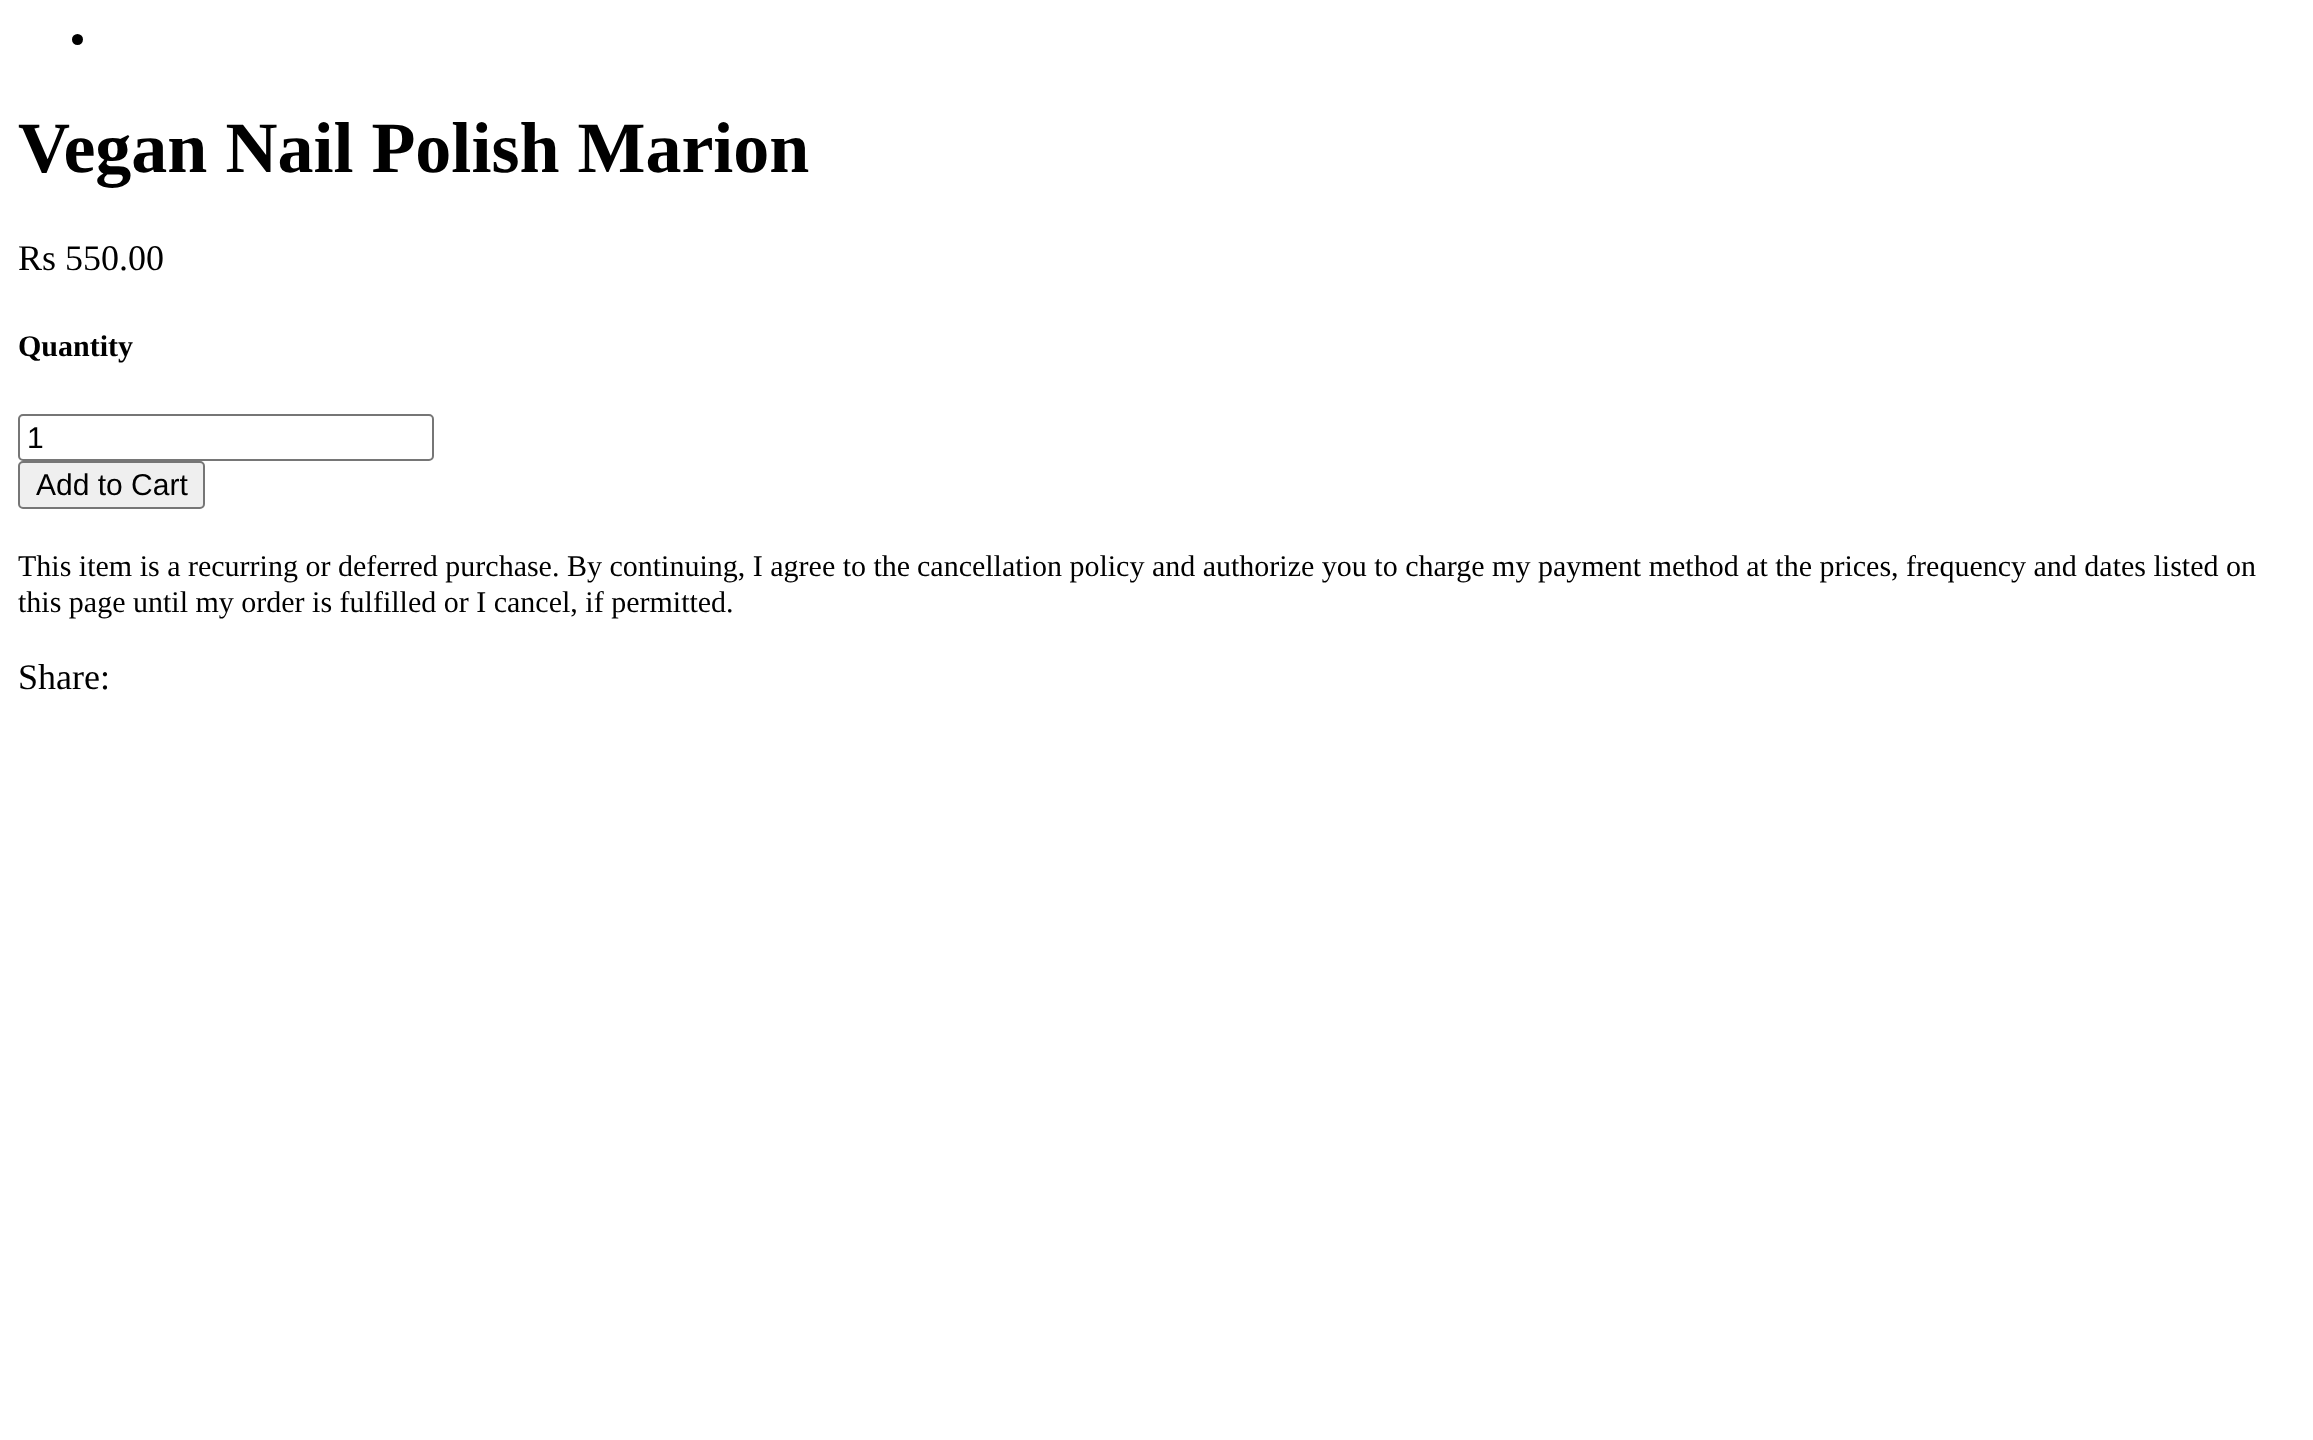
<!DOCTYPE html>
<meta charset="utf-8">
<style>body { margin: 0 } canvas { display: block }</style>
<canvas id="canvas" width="2313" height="1440"></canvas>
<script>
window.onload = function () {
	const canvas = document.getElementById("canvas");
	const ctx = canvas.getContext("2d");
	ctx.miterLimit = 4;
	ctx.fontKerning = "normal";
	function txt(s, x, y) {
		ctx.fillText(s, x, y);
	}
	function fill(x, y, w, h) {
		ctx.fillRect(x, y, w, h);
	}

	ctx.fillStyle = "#FFFFFF";
	fill(0, 0, 2313, 1440);
	ctx.fillStyle = "#000000";
	ctx.beginPath();
	ctx.arc(77.5, 39.5, 5.5, 0, Math.PI * 2);
	ctx.fill();
	ctx.beginPath();
	ctx.roundRect(19, 415, 414, 45, 4);
	ctx.strokeStyle = "#767676";
	ctx.lineWidth = 2;
	ctx.stroke();
	ctx.fillStyle = "#EFEFEF";
	ctx.beginPath();
	ctx.roundRect(19, 462, 185, 46, 4);
	ctx.fill();
	ctx.stroke();
	ctx.font = "bold 72px Liberation Serif";
	ctx.fillStyle = "#000000";
	txt("Vegan Nail Polish Marion", 18, 172);
	ctx.font = "36px Liberation Serif";
	txt("Rs 550.00", 18, 270);
	ctx.font = "bold 30px Liberation Serif";
	txt("Quantity", 18, 356);
	ctx.font = "30px Liberation Sans";
	txt("1", 27, 448);
	txt("Add to Cart", 36, 495);
	ctx.font = "30px Liberation Serif";
	txt("This item is a recurring or deferred purchase. By continuing, I agree to the", 18, 576);
	txt("cancellation policy and authorize you to charge my payment method at the prices, frequency and dates listed on", 917, 576);
	txt("this page until my order is fulfilled or I cancel, if permitted.", 18, 612);
	ctx.font = "36px Liberation Serif";
	txt("Share:", 18, 689);
};
</script>
